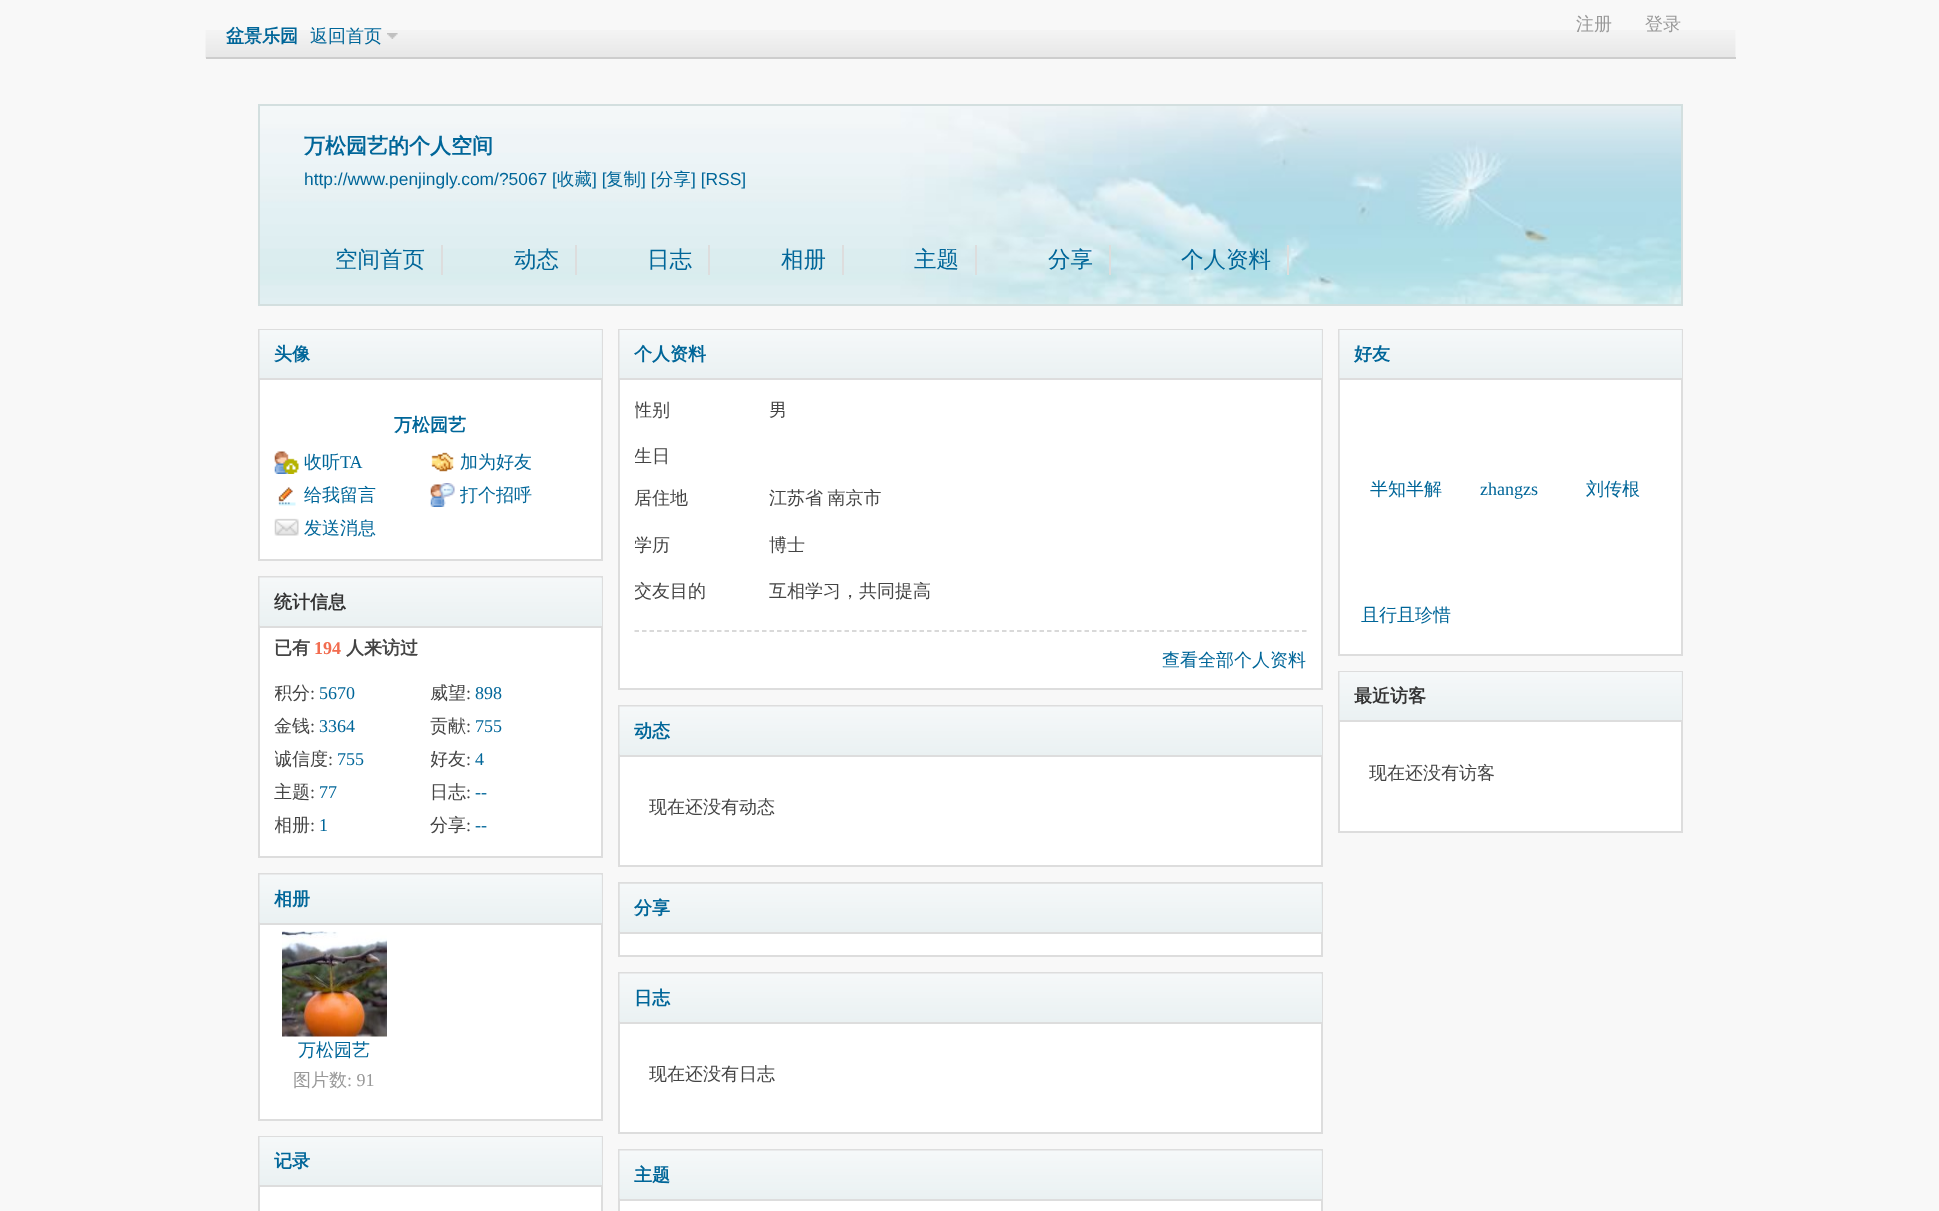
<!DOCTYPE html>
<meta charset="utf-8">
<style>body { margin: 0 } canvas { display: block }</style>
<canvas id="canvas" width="1939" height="1211"></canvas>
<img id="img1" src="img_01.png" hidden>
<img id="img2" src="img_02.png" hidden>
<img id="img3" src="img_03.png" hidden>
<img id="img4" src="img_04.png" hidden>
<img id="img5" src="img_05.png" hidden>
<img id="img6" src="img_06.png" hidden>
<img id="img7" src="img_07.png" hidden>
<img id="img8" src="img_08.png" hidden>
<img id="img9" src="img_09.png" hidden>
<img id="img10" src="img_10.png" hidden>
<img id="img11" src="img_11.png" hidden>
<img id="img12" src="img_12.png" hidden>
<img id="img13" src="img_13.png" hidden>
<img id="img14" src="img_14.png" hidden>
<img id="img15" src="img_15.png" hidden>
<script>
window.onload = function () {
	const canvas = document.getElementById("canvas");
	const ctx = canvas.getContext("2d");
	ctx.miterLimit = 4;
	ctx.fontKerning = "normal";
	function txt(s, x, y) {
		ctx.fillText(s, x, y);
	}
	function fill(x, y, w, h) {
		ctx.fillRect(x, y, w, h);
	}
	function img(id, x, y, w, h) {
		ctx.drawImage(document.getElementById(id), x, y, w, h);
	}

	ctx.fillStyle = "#F8F8F8";
	fill(0, 0, 1939, 1211);
	img("img1", 205, 30, 1531, 28);
	ctx.fillStyle = "#CDCDCD";
	fill(206, 57, 1530, 2);
	img("img2", 387, 33, 11, 6);
	img("img3", 260, 106, 1421, 198);
	ctx.strokeStyle = "#D3DFDF";
	ctx.lineWidth = 2;
	ctx.strokeRect(259, 105, 1423, 200);
	ctx.fillStyle = "#DDDDDD";
	fill(441, 245, 2, 30);
	fill(575, 245, 2, 30);
	fill(708, 245, 2, 30);
	fill(842, 245, 2, 30);
	fill(975, 245, 2, 30);
	fill(1109, 245, 2, 30);
	fill(1287, 245, 2, 30);
	ctx.fillStyle = "#FFFFFF";
	fill(260, 380, 341, 179);
	ctx.strokeStyle = "#DDDDDD";
	ctx.strokeRect(259, 330, 343, 230);
	ctx.fillStyle = "#EAF1F2";
	fill(601, 330, 1, 48);
	img("img4", 259, 330, 343, 48);
	ctx.fillStyle = "#DDDDDD";
	fill(260, 378, 342, 2);
	img("img5", 274, 451, 25, 23);
	img("img6", 431, 452, 23, 20);
	img("img7", 278, 487, 18, 19);
	img("img8", 430, 483, 25, 24);
	img("img9", 274, 518, 25, 18);
	ctx.fillStyle = "#FFFFFF";
	fill(260, 628, 341, 228);
	ctx.strokeRect(259, 577, 343, 280);
	ctx.fillStyle = "#EAF1F2";
	fill(260, 578, 342, 48);
	img("img10", 259, 577, 343, 49);
	ctx.fillStyle = "#DDDDDD";
	fill(260, 626, 342, 2);
	ctx.fillStyle = "#FFFFFF";
	fill(260, 925, 341, 194);
	ctx.strokeRect(259, 874, 343, 246);
	ctx.fillStyle = "#EAF1F2";
	fill(260, 875, 342, 48);
	img("img10", 259, 874, 343, 49);
	ctx.fillStyle = "#DDDDDD";
	fill(260, 923, 342, 2);
	img("img11", 282, 931, 105, 106);
	ctx.fillStyle = "#FFFFFF";
	fill(260, 1187, 341, 24);
	ctx.strokeRect(259, 1137, 343, 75);
	ctx.fillStyle = "#EAF1F2";
	fill(601, 1137, 1, 48);
	img("img4", 259, 1137, 343, 48);
	ctx.fillStyle = "#DDDDDD";
	fill(260, 1185, 342, 2);
	ctx.fillStyle = "#FFFFFF";
	fill(620, 380, 701, 308);
	ctx.strokeRect(619, 330, 703, 359);
	ctx.fillStyle = "#EAF1F2";
	fill(1321, 330, 1, 48);
	img("img12", 619, 330, 703, 48);
	ctx.fillStyle = "#DDDDDD";
	fill(620, 378, 702, 2);
	ctx.beginPath();
	ctx.moveTo(634.5, 631);
	ctx.lineTo(1306.5, 631);
	ctx.strokeStyle = "#CDCDCD";
	ctx.lineWidth = 1.5;
	ctx.setLineDash([4.5, 3]);
	ctx.stroke();
	ctx.fillStyle = "#FFFFFF";
	fill(620, 757, 701, 108);
	ctx.strokeStyle = "#DDDDDD";
	ctx.lineWidth = 2;
	ctx.setLineDash([]);
	ctx.strokeRect(619, 706, 703, 160);
	ctx.fillStyle = "#EAF1F2";
	fill(620, 707, 702, 48);
	img("img13", 619, 706, 703, 49);
	ctx.fillStyle = "#DDDDDD";
	fill(620, 755, 702, 2);
	ctx.fillStyle = "#FFFFFF";
	fill(620, 934, 701, 21);
	ctx.strokeRect(619, 883, 703, 73);
	ctx.fillStyle = "#EAF1F2";
	fill(620, 884, 702, 48);
	img("img14", 619, 883, 702, 48);
	ctx.fillStyle = "#DDDDDD";
	fill(620, 932, 702, 2);
	ctx.fillStyle = "#FFFFFF";
	fill(620, 1024, 701, 108);
	ctx.strokeRect(619, 973, 703, 160);
	ctx.fillStyle = "#EAF1F2";
	fill(620, 974, 702, 48);
	img("img15", 619, 973, 703, 49);
	ctx.fillStyle = "#DDDDDD";
	fill(620, 1022, 702, 2);
	ctx.fillStyle = "#FFFFFF";
	fill(620, 1201, 701, 10);
	ctx.strokeRect(619, 1150, 703, 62);
	ctx.fillStyle = "#EAF1F2";
	fill(620, 1151, 702, 48);
	img("img13", 619, 1150, 703, 49);
	ctx.fillStyle = "#DDDDDD";
	fill(620, 1199, 702, 2);
	ctx.fillStyle = "#FFFFFF";
	fill(1340, 380, 341, 274);
	ctx.strokeRect(1339, 330, 343, 325);
	ctx.fillStyle = "#EAF1F2";
	fill(1681, 330, 1, 48);
	img("img4", 1339, 330, 343, 48);
	ctx.fillStyle = "#DDDDDD";
	fill(1340, 378, 342, 2);
	ctx.fillStyle = "#FFFFFF";
	fill(1340, 722, 341, 109);
	ctx.strokeRect(1339, 672, 343, 160);
	ctx.fillStyle = "#EAF1F2";
	fill(1681, 672, 1, 48);
	img("img4", 1339, 672, 343, 48);
	ctx.fillStyle = "#DDDDDD";
	fill(1340, 720, 342, 2);
	ctx.font = "500 18px WenQuanYi Zen Hei";
	ctx.fillStyle = "#999999";
	txt("注册", 1576, 30);
	txt("登录", 1645, 30);
	ctx.font = "bold 18px WenQuanYi Zen Hei";
	ctx.fillStyle = "#006699";
	txt("盆景乐园", 226, 42);
	ctx.font = "500 18px WenQuanYi Zen Hei";
	txt("返回首页", 310, 42);
	ctx.font = "bold 21px WenQuanYi Zen Hei";
	txt("万松园艺的个人空间", 304, 153);
	ctx.font = "17.4px Liberation Sans";
	txt("http://www.penjingly.com/?5067 [", 304, 185);
	ctx.font = "500 17.4px WenQuanYi Zen Hei";
	txt("收藏", 557, 185);
	ctx.font = "17.4px Liberation Sans";
	txt("] [", 592, 185);
	ctx.font = "500 17.4px WenQuanYi Zen Hei";
	txt("复制", 606, 185);
	ctx.font = "17.4px Liberation Sans";
	txt("] [", 641, 185);
	ctx.font = "500 17.4px WenQuanYi Zen Hei";
	txt("分享", 656, 185);
	ctx.font = "17.4px Liberation Sans";
	txt("] [RSS]", 691, 185);
	ctx.font = "500 22.5px WenQuanYi Zen Hei";
	txt("空间首页", 335, 267);
	txt("动态", 514, 267);
	txt("日志", 647, 267);
	txt("相册", 781, 267);
	txt("主题", 914, 267);
	txt("分享", 1048, 267);
	txt("个人资料", 1181, 267);
	ctx.font = "bold 18px WenQuanYi Zen Hei";
	txt("头像", 274, 360);
	txt("万松园艺", 394, 431);
	ctx.font = "500 18px WenQuanYi Zen Hei";
	txt("收听", 304, 468);
	ctx.font = "18px Liberation Serif";
	txt("TA", 340, 468);
	ctx.font = "500 18px WenQuanYi Zen Hei";
	txt("加为好友", 460, 468);
	txt("给我留言", 304, 501);
	txt("打个招呼", 460, 501);
	txt("发送消息", 304, 534);
	ctx.font = "bold 18px WenQuanYi Zen Hei";
	ctx.fillStyle = "#333333";
	txt("统计信息", 274, 608);
	ctx.fillStyle = "#444444";
	txt("已有", 274, 654);
	ctx.font = "bold 18px Liberation Serif";
	ctx.fillStyle = "#F26C4F";
	txt("194", 314, 654);
	ctx.font = "bold 18px WenQuanYi Zen Hei";
	ctx.fillStyle = "#444444";
	txt("人来访过", 346, 654);
	ctx.save();
	ctx.beginPath();
	ctx.rect(275, 680, 156, 27);
	ctx.clip();
	ctx.font = "500 18px WenQuanYi Zen Hei";
	txt("积分", 274, 699);
	ctx.restore();
	ctx.font = "18px Liberation Serif";
	txt(":", 310, 699);
	ctx.fillStyle = "#006699";
	txt("5670", 319, 699);
	ctx.font = "500 18px WenQuanYi Zen Hei";
	ctx.fillStyle = "#444444";
	txt("威望", 430, 699);
	ctx.font = "18px Liberation Serif";
	txt(":", 466, 699);
	ctx.fillStyle = "#006699";
	txt("898", 475, 699);
	ctx.font = "500 18px WenQuanYi Zen Hei";
	ctx.fillStyle = "#444444";
	txt("金钱", 274, 732);
	ctx.font = "18px Liberation Serif";
	txt(":", 310, 732);
	ctx.fillStyle = "#006699";
	txt("3364", 319, 732);
	ctx.font = "500 18px WenQuanYi Zen Hei";
	ctx.fillStyle = "#444444";
	txt("贡献", 430, 732);
	ctx.font = "18px Liberation Serif";
	txt(":", 466, 732);
	ctx.fillStyle = "#006699";
	txt("755", 475, 732);
	ctx.save();
	ctx.beginPath();
	ctx.rect(275, 746, 156, 27);
	ctx.clip();
	ctx.font = "500 18px WenQuanYi Zen Hei";
	ctx.fillStyle = "#444444";
	txt("诚信度", 274, 765);
	ctx.restore();
	ctx.fillStyle = "#444444";
	txt(":", 328, 765);
	ctx.fillStyle = "#006699";
	txt("755", 337, 765);
	ctx.save();
	ctx.beginPath();
	ctx.rect(431, 746, 156, 27);
	ctx.clip();
	ctx.font = "500 18px WenQuanYi Zen Hei";
	ctx.fillStyle = "#444444";
	txt("好友", 430, 765);
	ctx.restore();
	ctx.fillStyle = "#444444";
	txt(":", 466, 765);
	ctx.fillStyle = "#006699";
	txt("4", 475, 765);
	ctx.font = "500 18px WenQuanYi Zen Hei";
	ctx.fillStyle = "#444444";
	txt("主题", 274, 798);
	ctx.font = "18px Liberation Serif";
	txt(":", 310, 798);
	ctx.fillStyle = "#006699";
	txt("77", 319, 798);
	ctx.font = "500 18px WenQuanYi Zen Hei";
	ctx.fillStyle = "#444444";
	txt("日志", 430, 798);
	ctx.font = "18px Liberation Serif";
	txt(":", 466, 798);
	ctx.fillStyle = "#006699";
	txt("--", 475, 798);
	ctx.save();
	ctx.beginPath();
	ctx.rect(275, 812, 156, 27);
	ctx.clip();
	ctx.font = "500 18px WenQuanYi Zen Hei";
	ctx.fillStyle = "#444444";
	txt("相册", 274, 831);
	ctx.restore();
	ctx.fillStyle = "#444444";
	txt(":", 310, 831);
	ctx.fillStyle = "#006699";
	txt("1", 319, 831);
	ctx.font = "500 18px WenQuanYi Zen Hei";
	ctx.fillStyle = "#444444";
	txt("分享", 430, 831);
	ctx.font = "18px Liberation Serif";
	txt(":", 466, 831);
	ctx.fillStyle = "#006699";
	txt("--", 475, 831);
	ctx.font = "bold 18px WenQuanYi Zen Hei";
	txt("相册", 274, 905);
	ctx.font = "500 18px WenQuanYi Zen Hei";
	txt("万松园艺", 298, 1056);
	ctx.fillStyle = "#999999";
	txt("图片数", 293, 1086);
	ctx.font = "18px Liberation Serif";
	txt(": 91", 347, 1086);
	ctx.font = "bold 18px WenQuanYi Zen Hei";
	ctx.fillStyle = "#006699";
	txt("记录", 274, 1167);
	txt("个人资料", 634, 360);
	ctx.save();
	ctx.beginPath();
	ctx.rect(635, 392, 127, 37);
	ctx.clip();
	ctx.font = "500 18px WenQuanYi Zen Hei";
	ctx.fillStyle = "#444444";
	txt("性别", 634, 416);
	ctx.restore();
	ctx.font = "500 18px WenQuanYi Zen Hei";
	ctx.fillStyle = "#444444";
	txt("男", 769, 416);
	ctx.save();
	ctx.beginPath();
	ctx.rect(635, 438, 127, 38);
	ctx.clip();
	txt("生日", 634, 462);
	ctx.restore();
	txt("居住地", 634, 504);
	ctx.wordSpacing = "-1px";
	txt("江苏省 南京市", 769, 504);
	ctx.save();
	ctx.beginPath();
	ctx.rect(635, 527, 127, 37);
	ctx.clip();
	ctx.wordSpacing = "0px";
	txt("学历", 634, 551);
	ctx.restore();
	ctx.wordSpacing = "0px";
	txt("博士", 769, 551);
	ctx.save();
	ctx.beginPath();
	ctx.rect(635, 573, 127, 38);
	ctx.clip();
	txt("交友目的", 634, 597);
	ctx.restore();
	txt("互相学习，共同提高", 769, 597);
	ctx.fillStyle = "#006699";
	txt("查看全部个人资料", 1162, 666);
	ctx.font = "bold 18px WenQuanYi Zen Hei";
	txt("动态", 634, 737);
	ctx.font = "500 18px WenQuanYi Zen Hei";
	ctx.fillStyle = "#444444";
	txt("现在还没有动态", 649, 813);
	ctx.font = "bold 18px WenQuanYi Zen Hei";
	ctx.fillStyle = "#006699";
	txt("分享", 634, 914);
	txt("日志", 634, 1004);
	ctx.font = "500 18px WenQuanYi Zen Hei";
	ctx.fillStyle = "#444444";
	txt("现在还没有日志", 649, 1080);
	ctx.font = "bold 18px WenQuanYi Zen Hei";
	ctx.fillStyle = "#006699";
	txt("主题", 634, 1181);
	txt("好友", 1354, 360);
	ctx.font = "500 18px WenQuanYi Zen Hei";
	txt("半知半解", 1370, 495);
	ctx.font = "18px Liberation Serif";
	txt("zhangzs", 1480, 495);
	ctx.font = "500 18px WenQuanYi Zen Hei";
	txt("刘传根", 1586, 495);
	txt("且行且珍惜", 1361, 621);
	ctx.font = "bold 18px WenQuanYi Zen Hei";
	ctx.fillStyle = "#333333";
	txt("最近访客", 1354, 702);
	ctx.font = "500 18px WenQuanYi Zen Hei";
	ctx.fillStyle = "#444444";
	txt("现在还没有访客", 1369, 779);
};
</script>
